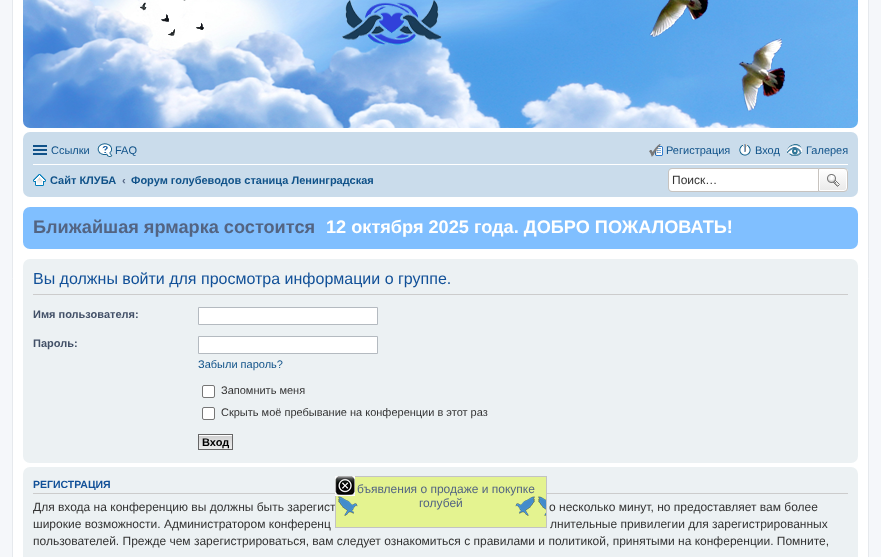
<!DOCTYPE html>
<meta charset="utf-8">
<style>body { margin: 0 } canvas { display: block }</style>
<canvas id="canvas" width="881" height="557"></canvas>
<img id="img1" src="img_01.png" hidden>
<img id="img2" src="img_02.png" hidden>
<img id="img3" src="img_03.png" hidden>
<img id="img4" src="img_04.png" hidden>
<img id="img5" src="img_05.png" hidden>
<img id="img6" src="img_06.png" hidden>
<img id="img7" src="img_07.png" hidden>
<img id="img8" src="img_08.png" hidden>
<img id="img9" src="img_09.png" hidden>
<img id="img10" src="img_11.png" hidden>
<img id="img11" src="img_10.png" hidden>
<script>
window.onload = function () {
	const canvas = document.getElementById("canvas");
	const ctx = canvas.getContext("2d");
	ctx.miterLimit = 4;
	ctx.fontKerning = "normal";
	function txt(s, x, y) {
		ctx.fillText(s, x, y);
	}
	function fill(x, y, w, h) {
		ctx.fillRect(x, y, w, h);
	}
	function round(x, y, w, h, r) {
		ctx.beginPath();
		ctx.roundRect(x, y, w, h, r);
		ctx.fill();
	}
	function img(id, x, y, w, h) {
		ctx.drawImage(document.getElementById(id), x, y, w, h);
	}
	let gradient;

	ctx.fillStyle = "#F5F7FA";
	fill(0, 0, 881, 557);
	ctx.fillStyle = "#FFFFFF";
	ctx.beginPath();
	ctx.rect(12.5, -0.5, 856, 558);
	ctx.fill();
	ctx.strokeStyle = "#E6E9ED";
	ctx.stroke();
	img("img1", 23, 0, 835, 128);
	img("img2", 342, 0, 100, 46);
	ctx.fillStyle = "#CADCEB";
	round(23, 132, 835, 65, 7);
	ctx.fillStyle = "#105289";
	fill(33, 145, 14, 2);
	fill(33, 149, 14, 2);
	fill(33, 153, 14, 2);
	img("img3", 97, 143, 16, 14);
	img("img4", 649, 144, 14, 13);
	img("img5", 739, 144, 12, 12);
	img("img6", 787, 144, 15, 12);
	ctx.fillStyle = "#FFFFFF";
	fill(33, 164, 815, 1);
	img("img7", 33, 174, 13, 12);
	ctx.beginPath();
	ctx.roundRect(669, 169, 149, 22, [3, 0, 0, 3]);
	ctx.fill();
	ctx.fillStyle = "#C7C3BF";
	ctx.beginPath();
	ctx.moveTo(672, 168);
	ctx.lineTo(818, 168);
	ctx.lineTo(818, 192);
	ctx.lineTo(672, 192);
	ctx.bezierCurveTo(670, 192, 668, 190, 668, 188);
	ctx.lineTo(668, 172);
	ctx.bezierCurveTo(668, 170, 670, 168, 672, 168);
	ctx.closePath();
	ctx.moveTo(672, 169);
	ctx.lineTo(818, 169);
	ctx.lineTo(818, 191);
	ctx.lineTo(672, 191);
	ctx.bezierCurveTo(670, 191, 669, 190, 669, 188);
	ctx.lineTo(669, 172);
	ctx.bezierCurveTo(669, 170, 670, 169, 672, 169);
	ctx.closePath();
	ctx.fill("evenodd");
	ctx.save();
	ctx.beginPath();
	ctx.roundRect(818, 168, 30, 24, [0, 4, 4, 0]);
	ctx.clip();
	gradient = ctx.createLinearGradient(833, 169, 833, 191);
	gradient.addColorStop(0, "#FFFFFF");
	gradient.addColorStop(1, "#E9E9E9");
	ctx.fillStyle = gradient;
	fill(820, 169, 28, 22);
	ctx.restore();
	ctx.beginPath();
	ctx.roundRect(819.5, 169.5, 27, 21, [0, 2.5, 2.5, 0]);
	ctx.strokeStyle = "#FFFFFF";
	ctx.stroke();
	ctx.beginPath();
	ctx.roundRect(818.5, 168.5, 29, 23, [0, 3.5, 3.5, 0]);
	ctx.strokeStyle = "#C7C3BF";
	ctx.stroke();
	img("img8", 827, 174, 13, 13);
	ctx.fillStyle = "#80BFFF";
	round(23, 207, 835, 42, 7);
	ctx.fillStyle = "#ECF1F3";
	round(23, 259, 835, 204, 7);
	ctx.fillStyle = "#CCCCCC";
	fill(33, 294, 815, 1);
	ctx.fillStyle = "#FFFFFF";
	ctx.beginPath();
	ctx.rect(198.5, 307.5, 179, 17);
	ctx.fill();
	ctx.strokeStyle = "#B4BAC0";
	ctx.stroke();
	ctx.beginPath();
	ctx.rect(198.5, 336.5, 179, 17);
	ctx.fill();
	ctx.stroke();
	ctx.beginPath();
	ctx.roundRect(202.5, 385.5, 12, 12, 1.5);
	ctx.fill();
	ctx.strokeStyle = "#767676";
	ctx.stroke();
	ctx.beginPath();
	ctx.roundRect(202.5, 407.5, 12, 12, 1.5);
	ctx.fill();
	ctx.stroke();
	img("img9", 199, 435, 33, 14);
	ctx.strokeStyle = "#666666";
	ctx.strokeRect(198.5, 434.5, 34, 15);
	ctx.fillStyle = "#ECF1F3";
	round(23, 467, 835, 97, 7);
	ctx.fillStyle = "#CCCCCC";
	fill(33, 493, 815, 1);
	ctx.font = "11px Liberation Sans";
	ctx.fillStyle = "#105289";
	txt("Ссылки", 51, 154);
	txt("FAQ", 115, 154);
	txt("Регистрация", 666, 154);
	txt("Вход", 755, 154);
	txt("Галерея", 806, 154);
	ctx.font = "bold 11px Liberation Sans";
	txt("Сайт КЛУБА", 50, 184);
	ctx.fillStyle = "#536482";
	txt("‹", 122, 184);
	ctx.fillStyle = "#105289";
	txt("Форум голубеводов станица Ленинградская", 131, 184);
	ctx.font = "12px Liberation Sans";
	ctx.fillStyle = "#333333";
	txt("Поиск…", 672, 184);
	ctx.font = "bold 18.15px Liberation Sans";
	ctx.fillStyle = "#536482";
	txt("Ближайшая ярмарка состоится", 33, 233);
	ctx.fillStyle = "#FFFFFF";
	txt("12 октября 2025 года. ДОБРО ПОЖАЛОВАТЬ!", 326, 233);
	ctx.font = "16px Liberation Sans";
	ctx.fillStyle = "#115098";
	txt("Вы должны войти для просмотра информации о группе.", 33, 284);
	ctx.font = "bold 11px Liberation Sans";
	ctx.fillStyle = "#425067";
	txt("Имя пользователя:", 33, 318);
	txt("Пароль:", 33, 347);
	ctx.font = "11px Liberation Sans";
	ctx.fillStyle = "#105289";
	txt("Забыли пароль?", 198, 368);
	ctx.fillStyle = "#333333";
	txt("Запомнить меня", 221, 394);
	txt("Скрыть моё пребывание на конференции в этот раз", 221, 416);
	ctx.font = "bold 11px Liberation Sans";
	ctx.fillStyle = "#000000";
	txt("Вход", 202, 446);
	ctx.font = "bold 10.5px Liberation Sans";
	ctx.fillStyle = "#115098";
	txt("РЕГИСТРАЦИЯ", 33, 488);
	ctx.font = "12px Liberation Sans";
	ctx.fillStyle = "#333333";
	txt("Для входа на конференцию вы должны быть зарегист", 33, 511);
	txt("о несколько минут, но предоставляет вам более", 549, 511);
	txt("широкие возможности. Администратором конференц", 33, 528);
	txt("лнительные привилегии для зарегистрированных", 550, 528);
	txt("пользователей. Прежде чем зарегистрироваться, вам следует ознакомиться с правилами и политикой, принятыми на конференции. Помните,", 33, 545);
	ctx.strokeStyle = "#C3C3C3";
	ctx.strokeRect(335.5, 476.5, 211, 51);
	img("img10", 336, 477, 210, 50);
	img("img11", 335, 476, 20, 20);
	ctx.fillStyle = "#536482";
	txt("бъявления о продаже и покупке", 357, 493);
	txt("голубей", 419, 507);
};
</script>
